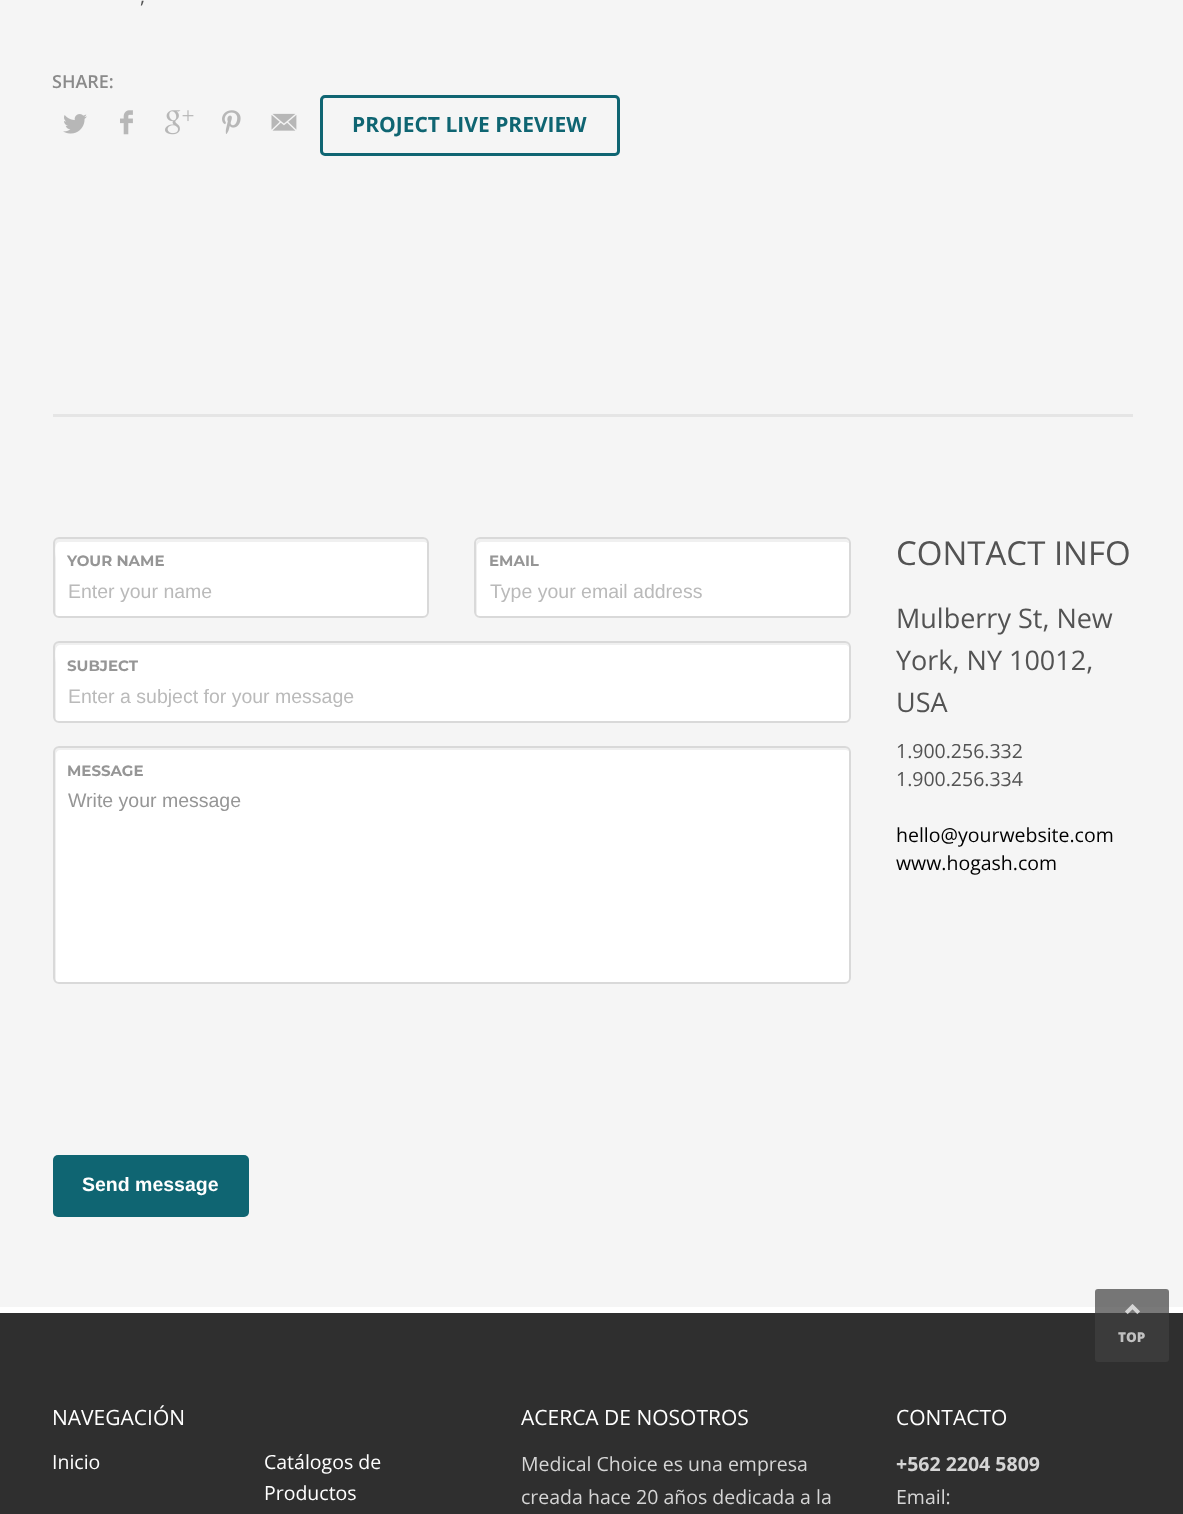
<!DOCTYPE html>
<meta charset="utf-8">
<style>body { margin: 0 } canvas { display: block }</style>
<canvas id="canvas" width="1183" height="1514"></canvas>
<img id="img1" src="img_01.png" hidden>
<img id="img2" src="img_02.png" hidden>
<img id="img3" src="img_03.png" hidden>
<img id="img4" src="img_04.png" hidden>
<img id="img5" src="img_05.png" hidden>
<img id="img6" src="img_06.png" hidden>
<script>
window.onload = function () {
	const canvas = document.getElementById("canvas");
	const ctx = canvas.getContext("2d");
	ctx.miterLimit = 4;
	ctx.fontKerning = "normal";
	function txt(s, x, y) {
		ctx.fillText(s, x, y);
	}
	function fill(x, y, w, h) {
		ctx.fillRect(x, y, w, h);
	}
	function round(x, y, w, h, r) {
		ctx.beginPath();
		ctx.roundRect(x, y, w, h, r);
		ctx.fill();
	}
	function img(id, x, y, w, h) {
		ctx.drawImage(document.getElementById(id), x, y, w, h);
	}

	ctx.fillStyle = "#F5F5F5";
	fill(0, 0, 1183, 1514);
	img("img1", 63, 114, 24, 20);
	img("img2", 120, 110, 13, 25);
	img("img3", 165, 110, 29, 25);
	img("img4", 222, 110, 19, 24);
	img("img5", 271, 113, 26, 18);
	ctx.beginPath();
	ctx.roundRect(321.5, 96.5, 297, 58, 3.5);
	ctx.strokeStyle = "#0F6572";
	ctx.lineWidth = 3;
	ctx.stroke();
	ctx.fillStyle = "#E5E5E5";
	fill(53, 414, 1080, 3);
	ctx.fillStyle = "#FFFFFF";
	round(53, 537, 376, 81, 6);
	ctx.fillStyle = "#F0F0F0";
	ctx.beginPath();
	ctx.moveTo(60, 542);
	ctx.lineTo(424, 542);
	ctx.bezierCurveTo(426, 542, 427, 543, 428, 544);
	ctx.bezierCurveTo(428, 541, 426, 539, 423, 539);
	ctx.lineTo(59, 539);
	ctx.bezierCurveTo(56, 539, 54, 541, 54, 544);
	ctx.lineTo(54, 612);
	ctx.bezierCurveTo(54, 614, 55, 615, 56, 616);
	ctx.lineTo(56, 558);
	ctx.bezierCurveTo(56, 556, 53, 542, 60, 542);
	ctx.closePath();
	ctx.fill();
	ctx.beginPath();
	ctx.roundRect(54, 538, 374, 79, 5);
	ctx.strokeStyle = "#D9D9D9";
	ctx.lineWidth = 2;
	ctx.stroke();
	ctx.fillStyle = "#FFFFFF";
	round(474, 537, 377, 81, 6);
	ctx.fillStyle = "#F0F0F0";
	ctx.beginPath();
	ctx.moveTo(482, 542);
	ctx.lineTo(846, 542);
	ctx.bezierCurveTo(847, 542, 848, 543, 849, 543);
	ctx.bezierCurveTo(849, 541, 847, 539, 844, 539);
	ctx.lineTo(481, 539);
	ctx.bezierCurveTo(478, 539, 476, 541, 476, 544);
	ctx.lineTo(476, 612);
	ctx.bezierCurveTo(476, 613, 476, 614, 477, 615);
	ctx.lineTo(477, 546);
	ctx.bezierCurveTo(477, 544, 479, 542, 482, 542);
	ctx.closePath();
	ctx.fill();
	ctx.beginPath();
	ctx.roundRect(475, 538, 375, 79, 5);
	ctx.stroke();
	ctx.fillStyle = "#FFFFFF";
	round(53, 641, 798, 82, 6);
	ctx.fillStyle = "#F0F0F0";
	ctx.beginPath();
	ctx.moveTo(60, 645);
	ctx.lineTo(846, 645);
	ctx.bezierCurveTo(847, 645, 848, 646, 849, 647);
	ctx.bezierCurveTo(849, 644, 847, 642, 844, 642);
	ctx.lineTo(59, 642);
	ctx.bezierCurveTo(56, 642, 54, 644, 54, 647);
	ctx.lineTo(54, 717);
	ctx.bezierCurveTo(54, 719, 55, 720, 56, 721);
	ctx.lineTo(56, 662);
	ctx.bezierCurveTo(56, 661, 53, 645, 60, 645);
	ctx.closePath();
	ctx.fill();
	ctx.beginPath();
	ctx.roundRect(54, 642, 796, 80, 5);
	ctx.stroke();
	ctx.fillStyle = "#FFFFFF";
	round(53, 746, 798, 238, 6);
	ctx.fillStyle = "#F0F0F0";
	ctx.beginPath();
	ctx.moveTo(60, 750);
	ctx.lineTo(846, 750);
	ctx.bezierCurveTo(847, 750, 848, 751, 849, 751);
	ctx.bezierCurveTo(849, 749, 847, 747, 844, 747);
	ctx.lineTo(59, 747);
	ctx.bezierCurveTo(56, 747, 54, 749, 54, 752);
	ctx.lineTo(54, 978);
	ctx.bezierCurveTo(54, 980, 55, 981, 56, 982);
	ctx.lineTo(56, 754);
	ctx.bezierCurveTo(56, 752, 58, 750, 60, 750);
	ctx.closePath();
	ctx.fill();
	ctx.beginPath();
	ctx.roundRect(54, 747, 796, 236, 5);
	ctx.stroke();
	ctx.fillStyle = "#0F6572";
	round(53, 1155, 196, 62, 5);
	ctx.fillStyle = "#2F2F2F";
	fill(0, 1313, 1183, 201);
	ctx.fillStyle = "#FFFFFF";
	fill(0, 1307, 1183, 6);
	ctx.fillStyle = "rgba(64, 64, 64, 0.7)";
	round(1095, 1289, 74, 73, 3);
	img("img6", 1125, 1304, 15, 11);
	ctx.font = "19.5px Open Sans";
	ctx.fillStyle = "#535353";
	txt(",", 140, 3);
	ctx.font = "600 18px Open Sans";
	ctx.fillStyle = "#8A8A8A";
	txt("SHARE:", 52, 88);
	ctx.font = "bold 21px Open Sans";
	ctx.fillStyle = "#0F6572";
	txt("PROJECT LIVE PREVIEW", 352, 132);
	ctx.font = "bold 15px Montserrat";
	ctx.fillStyle = "#969696";
	txt("YOUR NAME", 67, 566);
	ctx.font = "19.5px Liberation Sans";
	ctx.fillStyle = "#BABABA";
	txt("Enter your name", 68, 598);
	ctx.font = "bold 15px Montserrat";
	ctx.fillStyle = "#969696";
	txt("EMAIL", 489, 566);
	ctx.font = "19.5px Liberation Sans";
	ctx.fillStyle = "#BABABA";
	txt("Type your email address", 490, 598);
	ctx.font = "bold 15px Montserrat";
	ctx.fillStyle = "#969696";
	txt("SUBJECT", 67, 671);
	ctx.font = "19.5px Liberation Sans";
	ctx.fillStyle = "#BABABA";
	txt("Enter a subject for your message", 68, 703);
	ctx.font = "bold 15px Montserrat";
	ctx.fillStyle = "#969696";
	txt("MESSAGE", 67, 776);
	ctx.font = "19.5px Liberation Sans";
	txt("Write your message", 68, 807);
	ctx.font = "bold 19.5px Liberation Sans";
	ctx.fillStyle = "#FFFFFF";
	txt("Send message", 82, 1191);
	ctx.font = "33px Open Sans";
	ctx.fillStyle = "#535353";
	txt("CONTACT INFO", 896, 565);
	ctx.font = "27px Open Sans";
	txt("Mulberry St, New", 896, 628);
	txt("York, NY 10012,", 896, 670);
	txt("USA", 896, 712);
	ctx.font = "19.5px Open Sans";
	txt("1.900.256.332", 896, 758);
	txt("1.900.256.334", 896, 786);
	ctx.fillStyle = "#000000";
	txt("hello@yourwebsite.com", 896, 842);
	txt("www.hogash.com", 896, 870);
	ctx.font = "21px Open Sans";
	ctx.fillStyle = "#FFFFFF";
	txt("NAVEGACIÓN", 52, 1425);
	ctx.font = "19.5px Open Sans";
	txt("Inicio", 52, 1469);
	txt("Catálogos de", 264, 1469);
	txt("Productos", 264, 1500);
	ctx.font = "21px Open Sans";
	txt("ACERCA DE NOSOTROS", 521, 1425);
	ctx.font = "19.5px Open Sans";
	ctx.fillStyle = "#D5D5D5";
	txt("Medical Choice es una empresa", 521, 1471);
	txt("creada hace 20 años dedicada a la", 521, 1504);
	ctx.font = "21px Open Sans";
	ctx.fillStyle = "#FFFFFF";
	txt("CONTACTO", 896, 1425);
	ctx.font = "bold 19.5px Open Sans";
	ctx.fillStyle = "#D5D5D5";
	txt("+562 2204 5809", 896, 1471);
	ctx.font = "19.5px Open Sans";
	txt("Email:", 896, 1504);
	ctx.font = "800 13.5px Open Sans";
	ctx.fillStyle = "#C1C1C1";
	txt("TOP", 1118, 1342);
};
</script>
